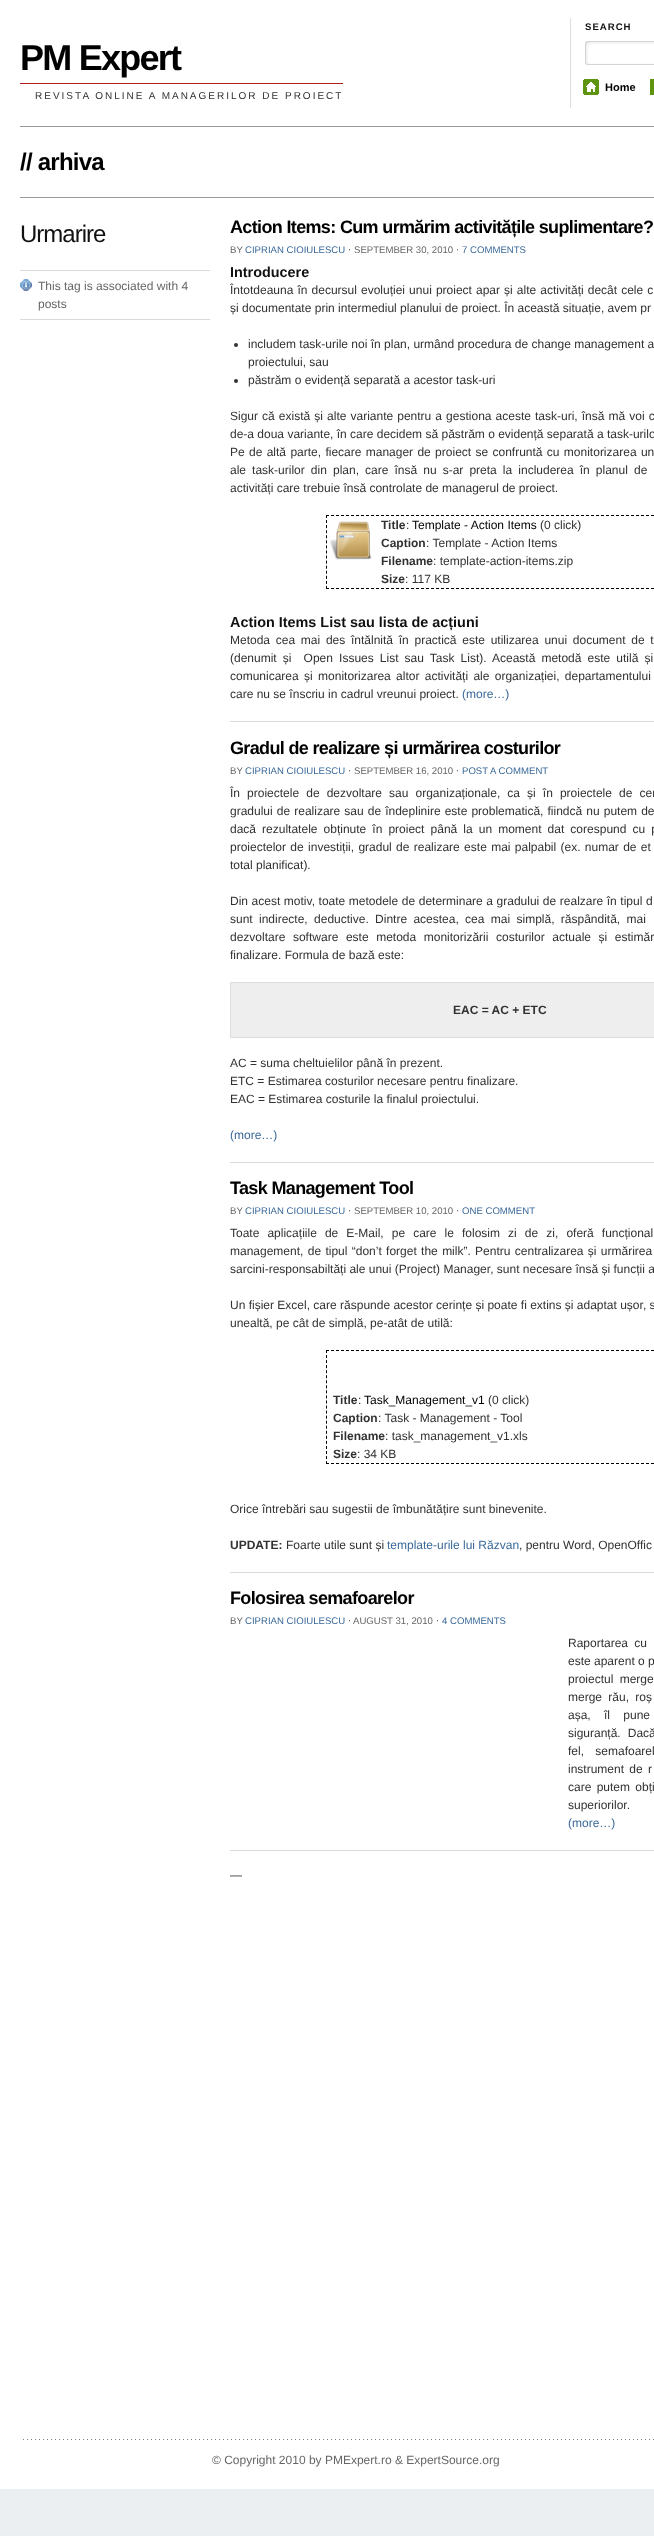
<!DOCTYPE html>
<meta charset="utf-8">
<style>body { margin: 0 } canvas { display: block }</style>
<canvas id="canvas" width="654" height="2536"></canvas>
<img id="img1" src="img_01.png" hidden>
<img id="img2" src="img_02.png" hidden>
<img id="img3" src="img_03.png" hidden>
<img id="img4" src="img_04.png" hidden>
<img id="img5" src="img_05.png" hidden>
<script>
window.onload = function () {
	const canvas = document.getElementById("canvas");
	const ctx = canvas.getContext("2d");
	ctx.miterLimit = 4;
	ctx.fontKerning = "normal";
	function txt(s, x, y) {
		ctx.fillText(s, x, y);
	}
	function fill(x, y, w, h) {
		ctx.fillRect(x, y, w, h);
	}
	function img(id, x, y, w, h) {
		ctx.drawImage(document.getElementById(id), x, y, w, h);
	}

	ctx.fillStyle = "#EBEFF2";
	fill(0, 0, 654, 2536);
	ctx.fillStyle = "#FFFFFF";
	fill(0, 0, 654, 2489);
	ctx.fillStyle = "#999999";
	fill(20, 126, 634, 1);
	ctx.fillStyle = "#B11B1B";
	fill(20, 83, 323, 1);
	ctx.fillStyle = "#DDDDDD";
	fill(570, 18, 1, 90);
	img("img1", 585, 41, 69, 24);
	img("img2", 583, 79, 16, 16);
	ctx.fillStyle = "#5F9410";
	fill(650, 79, 4, 16);
	ctx.fillStyle = "#999999";
	fill(20, 197, 634, 1);
	ctx.fillStyle = "#DADADA";
	fill(20, 270, 190, 1);
	img("img3", 20, 279, 12, 12);
	fill(20, 319, 190, 1);
	fill(230, 721, 424, 1);
	ctx.fillStyle = "#333333";
	ctx.beginPath();
	ctx.arc(236, 345, 2, 0, Math.PI * 2);
	ctx.fill();
	ctx.beginPath();
	ctx.arc(236, 381, 2, 0, Math.PI * 2);
	ctx.fill();
	ctx.beginPath();
	ctx.moveTo(326, 515.5);
	ctx.lineTo(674, 515.5);
	ctx.strokeStyle = "#000000";
	ctx.setLineDash([3, 2]);
	ctx.stroke();
	ctx.beginPath();
	ctx.moveTo(326, 588.5);
	ctx.lineTo(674, 588.5);
	ctx.stroke();
	ctx.beginPath();
	ctx.moveTo(326.5, 515);
	ctx.lineTo(326.5, 589);
	ctx.setLineDash([3, 2.07]);
	ctx.stroke();
	img("img4", 330, 521, 42, 39);
	ctx.fillStyle = "#DADADA";
	fill(230, 1162, 424, 1);
	ctx.fillStyle = "#EEEEEE";
	ctx.beginPath();
	ctx.rect(230.5, 982.5, 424, 55);
	ctx.fill();
	ctx.strokeStyle = "#DDDDDD";
	ctx.setLineDash([]);
	ctx.stroke();
	ctx.fillStyle = "#DADADA";
	fill(230, 1572, 424, 1);
	ctx.beginPath();
	ctx.moveTo(326, 1350.5);
	ctx.lineTo(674, 1350.5);
	ctx.strokeStyle = "#000000";
	ctx.setLineDash([3, 2]);
	ctx.stroke();
	ctx.beginPath();
	ctx.moveTo(326, 1463.5);
	ctx.lineTo(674, 1463.5);
	ctx.stroke();
	ctx.beginPath();
	ctx.moveTo(326.5, 1350);
	ctx.lineTo(326.5, 1464);
	ctx.setLineDash([3, 2.05]);
	ctx.stroke();
	fill(230, 1850, 424, 1);
	img("img5", 23, 2439, 631, 1);
	ctx.letterSpacing = "-1.75px";
	ctx.font = "bold 36px Liberation Sans";
	ctx.fillStyle = "#000000";
	txt("PM Expert", 20, 70);
	ctx.letterSpacing = "2px";
	ctx.font = "10px Liberation Sans";
	ctx.fillStyle = "#313131";
	txt("REVISTA ONLINE A MANAGERILOR DE PROIECT", 35, 99);
	ctx.letterSpacing = "1px";
	ctx.font = "bold 9.6px Liberation Sans";
	ctx.fillStyle = "#111111";
	txt("SEARCH", 585, 30);
	ctx.letterSpacing = "0px";
	ctx.font = "bold 11px Liberation Sans";
	ctx.fillStyle = "#000000";
	txt("Home", 605, 91);
	ctx.letterSpacing = "-0.75px";
	ctx.font = "bold 24px Liberation Sans";
	txt("// arhiva", 20, 170);
	ctx.letterSpacing = "-1px";
	ctx.font = "24px Liberation Sans";
	ctx.fillStyle = "#111111";
	txt("Urmarire", 20, 242);
	ctx.letterSpacing = "0px";
	ctx.font = "12px Liberation Sans";
	ctx.fillStyle = "#666666";
	txt("This tag is associated with 4", 38, 290);
	txt("posts", 38, 308);
	ctx.letterSpacing = "-0.65px";
	ctx.font = "bold 18px Liberation Sans";
	ctx.fillStyle = "#000000";
	txt("Action Items: Cum urmărim activitățile suplimentare?", 230, 233);
	ctx.letterSpacing = "0px";
	ctx.font = "9.6px Liberation Sans";
	ctx.fillStyle = "#666666";
	txt("BY", 230, 253);
	ctx.fillStyle = "#3A6999";
	txt("CIPRIAN CIOIULESCU", 245, 253);
	ctx.font = "9.6px DejaVu Sans";
	ctx.fillStyle = "#666666";
	txt("⋅", 348, 253);
	ctx.font = "9.6px Liberation Sans";
	txt("SEPTEMBER 30, 2010", 354, 253);
	ctx.font = "9.6px DejaVu Sans";
	txt("⋅", 456, 253);
	ctx.font = "9.6px Liberation Sans";
	ctx.fillStyle = "#3A6999";
	txt("7 COMMENTS", 462, 253);
	ctx.font = "bold 14.4px Liberation Sans";
	ctx.fillStyle = "#111111";
	txt("Introducere", 230, 277);
	ctx.wordSpacing = "0.75px";
	ctx.font = "12px Liberation Sans";
	ctx.fillStyle = "#313131";
	txt("Întotdeauna în decursul evoluției unui proiect apar și alte activități decât cele c", 230, 294);
	ctx.wordSpacing = "0px";
	txt("și documentate prin intermediul planului de proiect. În această situație, avem pr", 230, 312);
	txt("includem task-urile noi în plan, urmând procedura de change management a", 248, 348);
	txt("proiectului, sau", 248, 366);
	txt("păstrăm o evidență separată a acestor task-uri", 248, 384);
	ctx.wordSpacing = "0.75px";
	txt("Sigur că există și alte variante pentru a gestiona aceste task-uri, însă mă voi c", 230, 420);
	ctx.wordSpacing = "0px";
	txt("de-a doua variante, în care decidem să păstrăm o evidență separată a task-urilo", 230, 438);
	ctx.wordSpacing = "1px";
	txt("Pe de altă parte, fiecare manager de proiect se confruntă cu monitorizarea un", 230, 456);
	ctx.wordSpacing = "2.75px";
	txt("ale task-urilor din plan, care însă nu s-ar preta la includerea în planul de", 230, 474);
	ctx.wordSpacing = "0px";
	txt("activități care trebuie însă controlate de managerul de proiect.", 230, 492);
	ctx.font = "bold 12px Liberation Sans";
	txt("Title", 381, 529);
	ctx.font = "12px Liberation Sans";
	txt(":", 406, 529);
	ctx.fillStyle = "#000000";
	txt("Template - Action Items", 412, 529);
	ctx.fillStyle = "#313131";
	txt("(0 click)", 540, 529);
	ctx.font = "bold 12px Liberation Sans";
	txt("Caption", 381, 547);
	ctx.font = "12px Liberation Sans";
	txt(": Template - Action Items", 426, 547);
	ctx.font = "bold 12px Liberation Sans";
	txt("Filename", 381, 565);
	ctx.font = "12px Liberation Sans";
	txt(": template-action-items.zip", 433, 565);
	ctx.font = "bold 12px Liberation Sans";
	txt("Size", 381, 583);
	ctx.font = "12px Liberation Sans";
	txt(": 117 KB", 405, 583);
	ctx.font = "bold 14.4px Liberation Sans";
	ctx.fillStyle = "#111111";
	txt("Action Items List sau lista de acțiuni", 230, 627);
	ctx.wordSpacing = "2.4px";
	ctx.font = "12px Liberation Sans";
	ctx.fillStyle = "#313131";
	txt("Metoda cea mai des întălnită în practică este utilizarea unui document de t", 230, 644);
	ctx.wordSpacing = "2.75px";
	txt("(denumit și  Open Issues List sau Task List). Această metodă este utilă și", 230, 662);
	ctx.wordSpacing = "2px";
	txt("comunicarea și monitorizarea altor activități ale organizației, departamentului", 230, 680);
	ctx.wordSpacing = "0px";
	txt("care nu se înscriu in cadrul vreunui proiect.", 230, 698);
	ctx.fillStyle = "#3A6999";
	txt("(more…)", 462, 698);
	ctx.letterSpacing = "-0.65px";
	ctx.font = "bold 18px Liberation Sans";
	ctx.fillStyle = "#000000";
	txt("Gradul de realizare și urmărirea costurilor", 230, 754);
	ctx.letterSpacing = "0px";
	ctx.font = "9.6px Liberation Sans";
	ctx.fillStyle = "#666666";
	txt("BY", 230, 774);
	ctx.fillStyle = "#3A6999";
	txt("CIPRIAN CIOIULESCU", 245, 774);
	ctx.font = "9.6px DejaVu Sans";
	ctx.fillStyle = "#666666";
	txt("⋅", 348, 774);
	ctx.font = "9.6px Liberation Sans";
	txt("SEPTEMBER 16, 2010", 354, 774);
	ctx.font = "9.6px DejaVu Sans";
	txt("⋅", 456, 774);
	ctx.font = "9.6px Liberation Sans";
	ctx.fillStyle = "#3A6999";
	txt("POST A COMMENT", 462, 774);
	ctx.wordSpacing = "3.75px";
	ctx.font = "12px Liberation Sans";
	ctx.fillStyle = "#313131";
	txt("În proiectele de dezvoltare sau organizaționale, ca și în proiectele de cer", 230, 797);
	ctx.wordSpacing = "0.75px";
	txt("gradului de realizare sau de îndeplinire este problematică, fiindcă nu putem de", 230, 815);
	ctx.wordSpacing = "2.75px";
	txt("dacă rezultatele obținute în proiect până la un moment dat corespund cu p", 230, 833);
	ctx.wordSpacing = "1px";
	txt("proiectelor de investiții, gradul de realizare este mai palpabil (ex. numar de et", 230, 851);
	ctx.wordSpacing = "0px";
	txt("total planificat).", 230, 869);
	ctx.wordSpacing = "0.25px";
	txt("Din acest motiv, toate metodele de determinare a gradului de realzare în tipul d", 230, 905);
	ctx.wordSpacing = "3px";
	txt("sunt indirecte, deductive. Dintre acestea, cea mai simplă, răspândită, mai", 230, 923);
	ctx.wordSpacing = "4.25px";
	txt("dezvoltare software este metoda monitorizării costurilor actuale și estimăr", 230, 941);
	ctx.wordSpacing = "0px";
	txt("finalizare. Formula de bază este:", 230, 959);
	ctx.font = "bold 12px Liberation Sans";
	txt("EAC = AC + ETC", 453, 1014);
	ctx.font = "12px Liberation Sans";
	txt("AC = suma cheltuielilor până în prezent.", 230, 1067);
	txt("ETC = Estimarea costurilor necesare pentru finalizare.", 230, 1085);
	txt("EAC = Estimarea costurile la finalul proiectului.", 230, 1103);
	ctx.fillStyle = "#3A6999";
	txt("(more…)", 230, 1139);
	ctx.letterSpacing = "-0.65px";
	ctx.font = "bold 18px Liberation Sans";
	ctx.fillStyle = "#000000";
	txt("Task Management Tool", 230, 1194);
	ctx.letterSpacing = "0px";
	ctx.font = "9.6px Liberation Sans";
	ctx.fillStyle = "#666666";
	txt("BY", 230, 1214);
	ctx.fillStyle = "#3A6999";
	txt("CIPRIAN CIOIULESCU", 245, 1214);
	ctx.font = "9.6px DejaVu Sans";
	ctx.fillStyle = "#666666";
	txt("⋅", 348, 1214);
	ctx.font = "9.6px Liberation Sans";
	txt("SEPTEMBER 10, 2010", 354, 1214);
	ctx.font = "9.6px DejaVu Sans";
	txt("⋅", 456, 1214);
	ctx.font = "9.6px Liberation Sans";
	ctx.fillStyle = "#3A6999";
	txt("ONE COMMENT", 462, 1214);
	ctx.wordSpacing = "4.75px";
	ctx.font = "12px Liberation Sans";
	ctx.fillStyle = "#313131";
	txt("Toate aplicațiile de E-Mail, pe care le folosim zi de zi, oferă funcționali", 230, 1237);
	ctx.wordSpacing = "1px";
	txt("management, de tipul “don’t forget the milk”. Pentru centralizarea și urmărirea", 230, 1255);
	ctx.wordSpacing = "0px";
	txt("sarcini-responsabiltăți ale unui (Project) Manager, sunt necesare însă și funcții a", 230, 1273);
	txt("Un fișier Excel, care răspunde acestor cerințe și poate fi extins și adaptat ușor, s", 230, 1309);
	txt("unealtă, pe cât de simplă, pe-atât de utilă:", 230, 1327);
	ctx.font = "bold 12px Liberation Sans";
	txt("Title", 333, 1404);
	ctx.font = "12px Liberation Sans";
	txt(":", 358, 1404);
	ctx.fillStyle = "#000000";
	txt("Task_Management_v1", 364, 1404);
	ctx.fillStyle = "#313131";
	txt("(0 click)", 488, 1404);
	ctx.font = "bold 12px Liberation Sans";
	txt("Caption", 333, 1422);
	ctx.font = "12px Liberation Sans";
	txt(": Task - Management - Tool", 378, 1422);
	ctx.font = "bold 12px Liberation Sans";
	txt("Filename", 333, 1440);
	ctx.font = "12px Liberation Sans";
	txt(": task_management_v1.xls", 385, 1440);
	ctx.font = "bold 12px Liberation Sans";
	txt("Size", 333, 1458);
	ctx.font = "12px Liberation Sans";
	txt(": 34 KB", 357, 1458);
	txt("Orice întrebări sau sugestii de îmbunătățire sunt binevenite.", 230, 1513);
	ctx.font = "bold 12px Liberation Sans";
	txt("UPDATE:", 230, 1549);
	ctx.font = "12px Liberation Sans";
	txt("Foarte utile sunt și", 286, 1549);
	ctx.fillStyle = "#3A6999";
	txt("template-urile lui Răzvan", 387, 1549);
	ctx.fillStyle = "#313131";
	txt(", pentru Word, OpenOffic", 519, 1549);
	ctx.letterSpacing = "-0.65px";
	ctx.font = "bold 18px Liberation Sans";
	ctx.fillStyle = "#000000";
	txt("Folosirea semafoarelor", 230, 1604);
	ctx.letterSpacing = "0px";
	ctx.font = "9.6px Liberation Sans";
	ctx.fillStyle = "#666666";
	txt("BY", 230, 1624);
	ctx.fillStyle = "#3A6999";
	txt("CIPRIAN CIOIULESCU", 245, 1624);
	ctx.font = "9.6px DejaVu Sans";
	ctx.fillStyle = "#666666";
	txt("⋅", 348, 1624);
	ctx.font = "9.6px Liberation Sans";
	txt("AUGUST 31, 2010", 353, 1624);
	ctx.font = "9.6px DejaVu Sans";
	txt("⋅", 436, 1624);
	ctx.font = "9.6px Liberation Sans";
	ctx.fillStyle = "#3A6999";
	txt("4 COMMENTS", 442, 1624);
	ctx.wordSpacing = "3px";
	ctx.font = "12px Liberation Sans";
	ctx.fillStyle = "#313131";
	txt("Raportarea cu", 568, 1647);
	ctx.wordSpacing = "0px";
	txt("este aparent o p", 568, 1665);
	ctx.wordSpacing = "3px";
	txt("proiectul merge", 568, 1683);
	txt("merge rău, roș", 568, 1701);
	ctx.wordSpacing = "10px";
	txt("așa, îl pune", 568, 1719);
	ctx.wordSpacing = "3.75px";
	txt("siguranță. Dacă", 568, 1737);
	ctx.wordSpacing = "8px";
	txt("fel, semafoarel", 568, 1755);
	ctx.wordSpacing = "2px";
	txt("instrument de r", 568, 1773);
	txt("care putem obți", 568, 1791);
	ctx.wordSpacing = "0px";
	txt("superiorilor.", 568, 1809);
	ctx.fillStyle = "#3A6999";
	txt("(more…)", 568, 1827);
	ctx.fillStyle = "#313131";
	txt("—", 230, 1879);
	ctx.fillStyle = "#666666";
	txt("© Copyright 2010 by PMExpert.ro & ExpertSource.org", 212, 2464);
};
</script>
